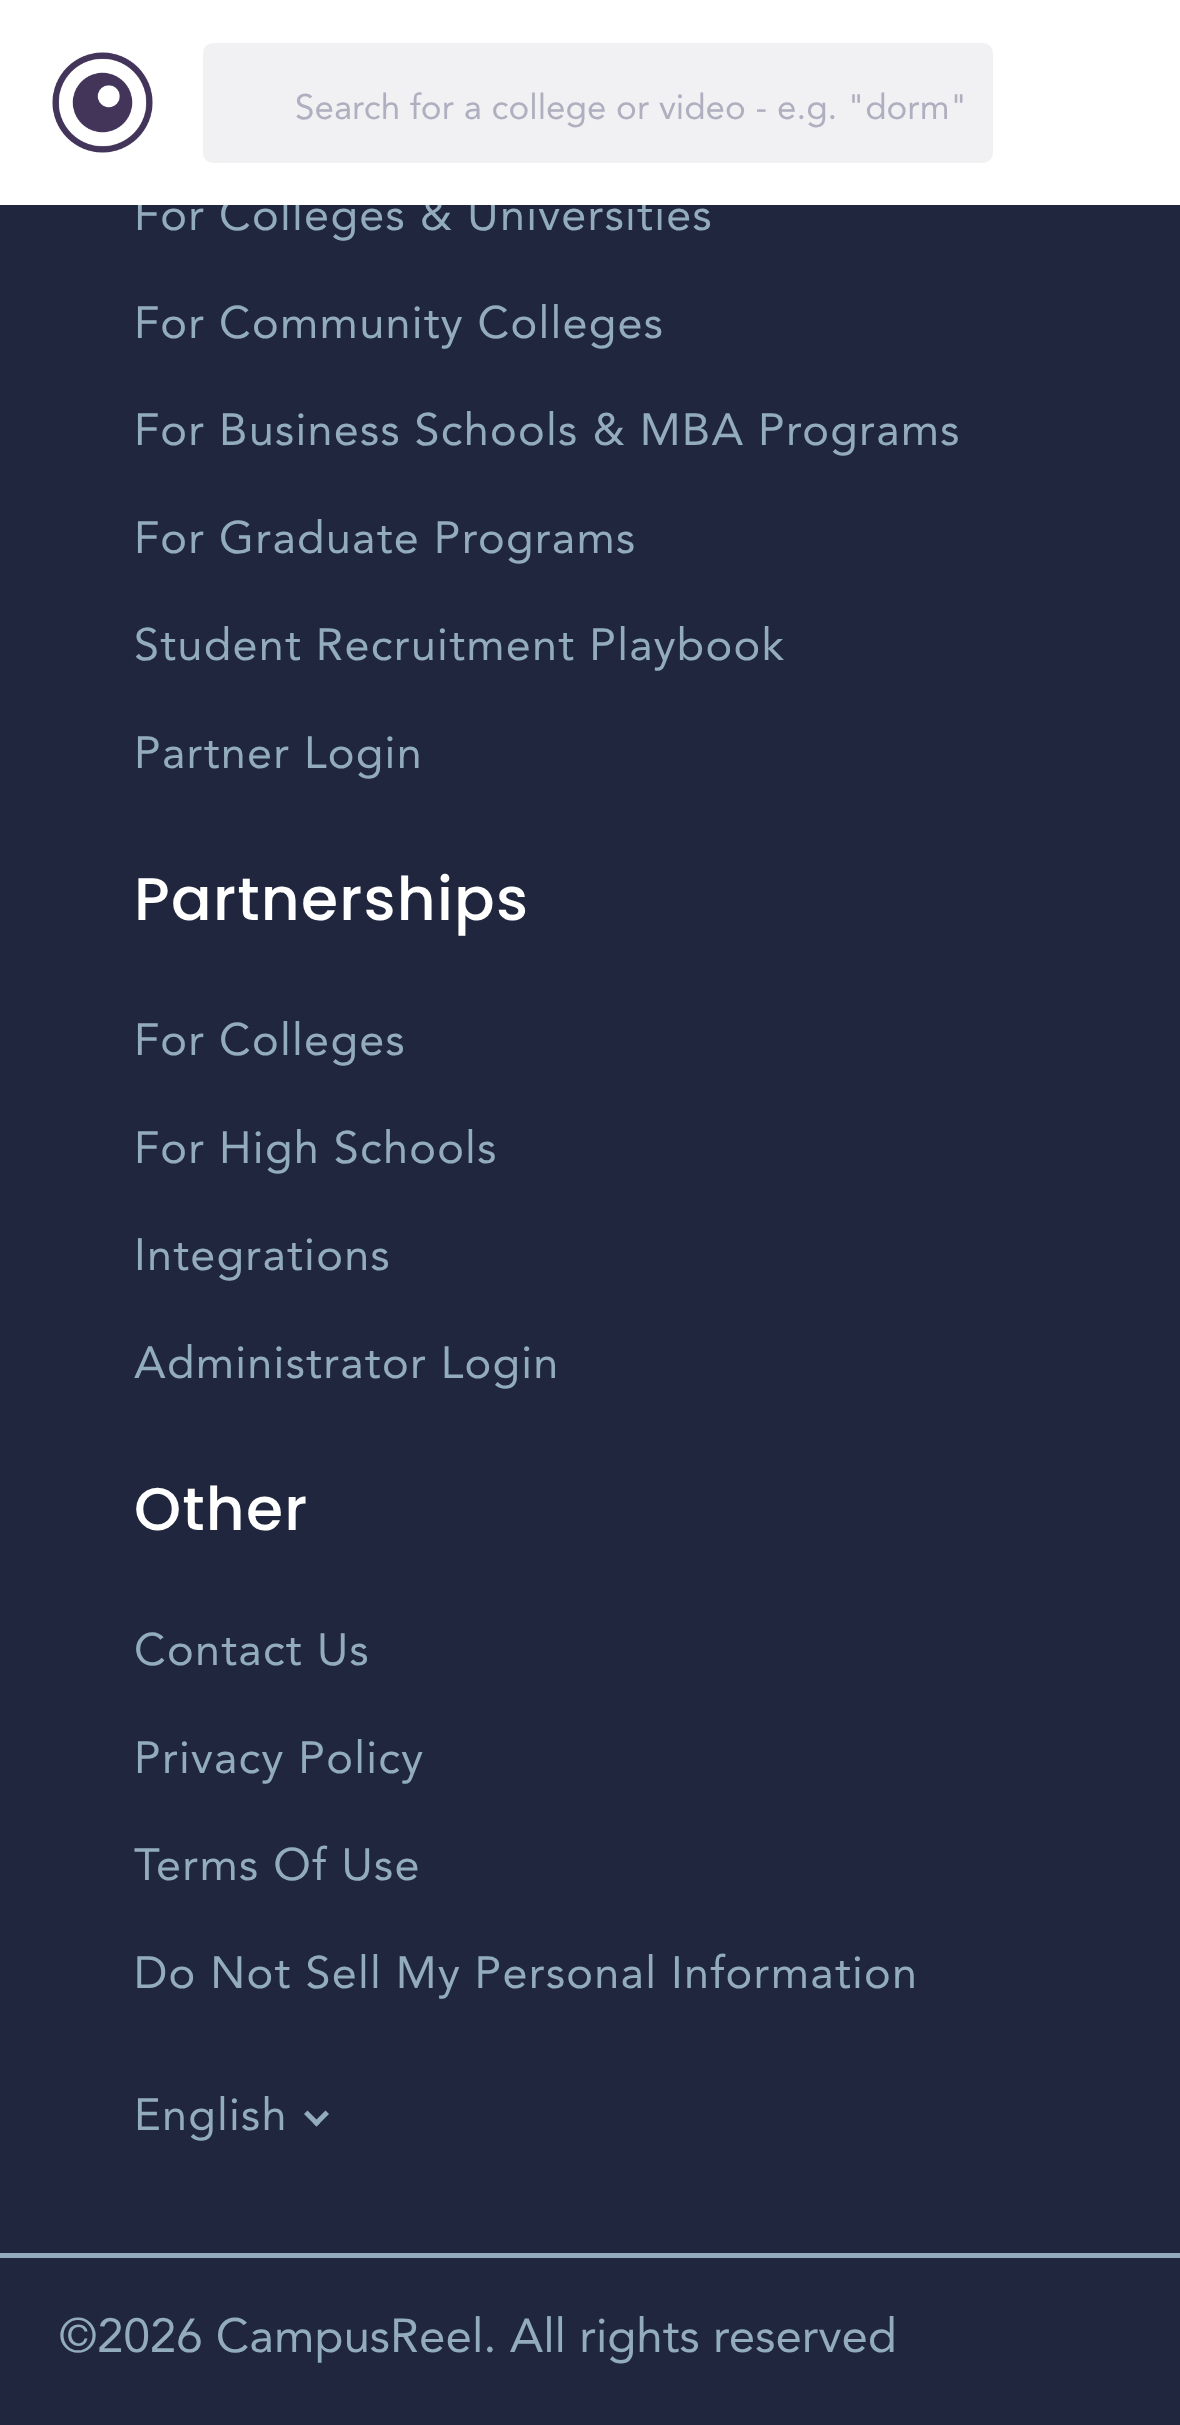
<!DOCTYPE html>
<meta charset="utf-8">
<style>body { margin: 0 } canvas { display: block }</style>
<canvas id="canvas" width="1180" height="2425"></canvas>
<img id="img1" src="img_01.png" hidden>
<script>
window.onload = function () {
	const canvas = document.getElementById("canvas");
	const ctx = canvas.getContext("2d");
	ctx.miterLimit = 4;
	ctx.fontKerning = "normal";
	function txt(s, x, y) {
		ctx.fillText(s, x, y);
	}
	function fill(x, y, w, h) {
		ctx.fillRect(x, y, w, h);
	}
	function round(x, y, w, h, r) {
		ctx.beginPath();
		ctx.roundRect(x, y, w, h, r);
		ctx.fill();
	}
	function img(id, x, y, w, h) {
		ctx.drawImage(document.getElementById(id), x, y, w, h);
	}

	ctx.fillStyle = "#20263D";
	fill(0, 0, 1180, 2425);
	ctx.fillStyle = "#92ACBD";
	ctx.beginPath();
	ctx.moveTo(325.5, 2110.5);
	ctx.lineTo(329, 2114);
	ctx.lineTo(316.5, 2126.5);
	ctx.lineTo(313, 2123);
	ctx.closePath();
	ctx.fill();
	ctx.beginPath();
	ctx.moveTo(307.5, 2110.5);
	ctx.lineTo(320, 2123);
	ctx.lineTo(316.5, 2126.5);
	ctx.lineTo(304, 2114);
	ctx.closePath();
	ctx.fill();
	fill(0, 2253, 1180, 5);
	ctx.letterSpacing = "1.25px";
	ctx.font = "45px Avenir";
	txt("For Colleges & Universities", 134, 230);
	ctx.fillStyle = "#FFFFFF";
	fill(0, 0, 1180, 205);
	ctx.fillStyle = "#F1F1F4";
	round(203, 43, 790, 120, 10);
	ctx.letterSpacing = "0px";
	ctx.font = "35px Avenir";
	ctx.fillStyle = "#AFAFBF";
	txt("Search for a college or video - e.g. \"dorm\"", 295, 119);
	img("img1", 52, 52, 101, 101);
	ctx.letterSpacing = "1.25px";
	ctx.font = "45px Avenir";
	ctx.fillStyle = "#92ACBD";
	txt("For Community Colleges", 134, 338);
	txt("For Business Schools & MBA Programs", 134, 445);
	txt("For Graduate Programs", 134, 553);
	txt("Student Recruitment Playbook", 134, 660);
	txt("Partner Login", 134, 768);
	ctx.font = "500 60px Poppins";
	ctx.fillStyle = "#FFFFFF";
	txt("Partnerships", 134, 920);
	ctx.font = "45px Avenir";
	ctx.fillStyle = "#92ACBD";
	txt("For Colleges", 134, 1055);
	txt("For High Schools", 134, 1163);
	txt("Integrations", 134, 1270);
	txt("Administrator Login", 134, 1378);
	ctx.font = "500 60px Poppins";
	ctx.fillStyle = "#FFFFFF";
	txt("Other", 134, 1530);
	ctx.font = "45px Avenir";
	ctx.fillStyle = "#92ACBD";
	txt("Contact Us", 134, 1665);
	txt("Privacy Policy", 134, 1773);
	txt("Terms Of Use", 134, 1880);
	txt("Do Not Sell My Personal Information", 134, 1988);
	txt("English", 134, 2130);
	ctx.letterSpacing = "0px";
	ctx.font = "47.5px Avenir";
	txt("©2026 CampusReel. All rights reserved", 59, 2352);
};
</script>
